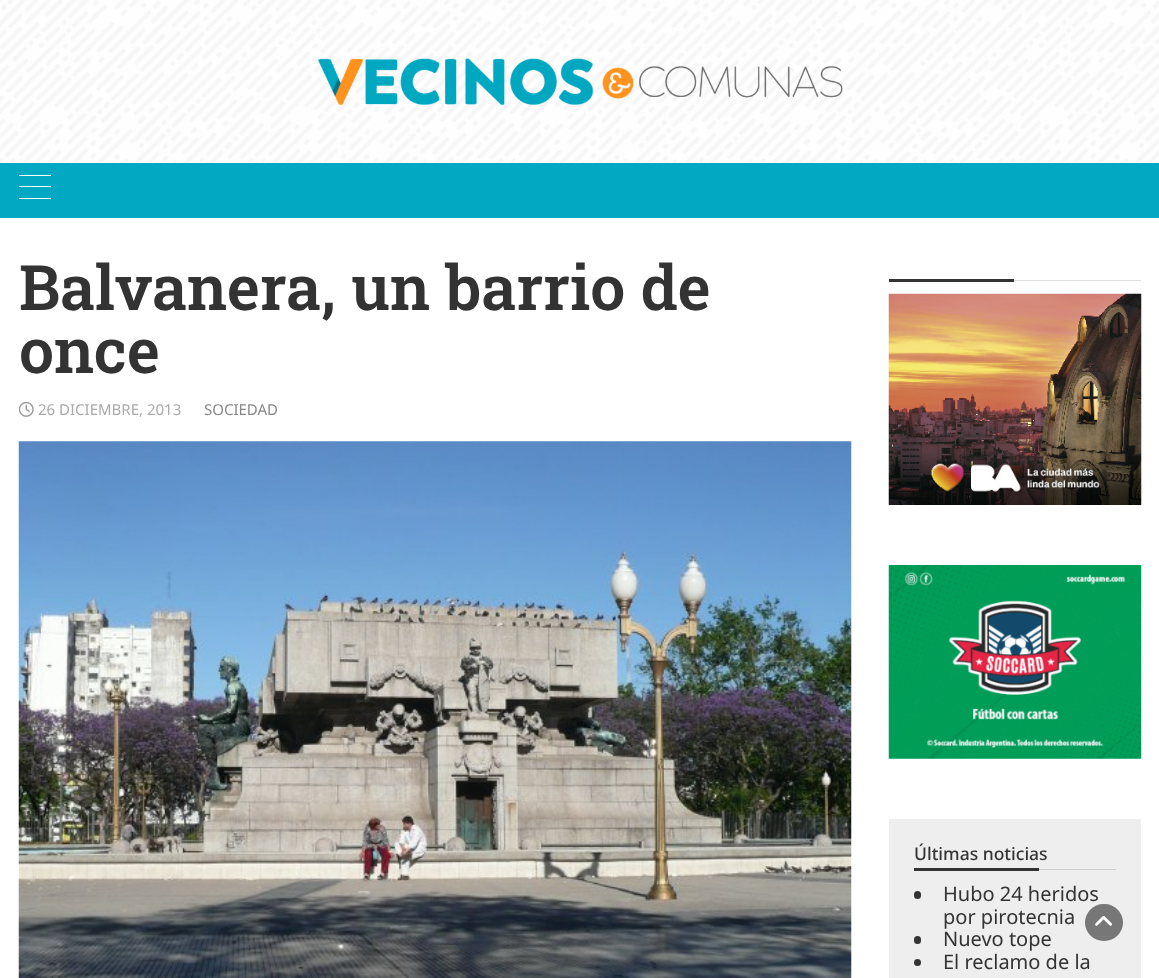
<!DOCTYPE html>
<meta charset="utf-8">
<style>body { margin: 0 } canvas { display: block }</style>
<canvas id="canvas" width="1159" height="978"></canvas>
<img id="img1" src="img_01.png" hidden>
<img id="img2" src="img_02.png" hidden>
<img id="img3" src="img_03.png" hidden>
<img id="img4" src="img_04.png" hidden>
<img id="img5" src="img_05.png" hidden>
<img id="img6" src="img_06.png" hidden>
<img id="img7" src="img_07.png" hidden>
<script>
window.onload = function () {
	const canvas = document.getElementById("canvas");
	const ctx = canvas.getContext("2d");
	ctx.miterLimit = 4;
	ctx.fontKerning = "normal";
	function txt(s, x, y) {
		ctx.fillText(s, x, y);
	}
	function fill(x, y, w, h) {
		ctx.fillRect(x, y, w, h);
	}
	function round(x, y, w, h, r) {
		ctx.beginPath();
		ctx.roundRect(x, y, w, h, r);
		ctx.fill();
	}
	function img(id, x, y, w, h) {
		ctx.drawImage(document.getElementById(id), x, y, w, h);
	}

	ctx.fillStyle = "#FFFFFF";
	fill(0, 0, 1159, 978);
	img("img1", 0, 0, 1159, 163);
	img("img2", 318, 58, 525, 47);
	ctx.fillStyle = "#00A8C1";
	fill(0, 163, 1159, 55);
	ctx.fillStyle = "#FFFFFF";
	fill(19, 175, 32, 1);
	fill(19, 186, 32, 1);
	fill(19, 198, 32, 1);
	img("img3", 19, 401, 15, 16);
	img("img4", 18, 441, 834, 537);
	ctx.fillStyle = "#DEDEDE";
	fill(1014, 280, 127, 1);
	ctx.fillStyle = "#333333";
	fill(889, 279, 125, 3);
	img("img5", 888, 293, 254, 212);
	img("img6", 888, 565, 254, 194);
	ctx.fillStyle = "#EEEEEE";
	fill(889, 819, 252, 159);
	ctx.fillStyle = "#CFCFCF";
	fill(1039, 869, 77, 1);
	ctx.fillStyle = "#333333";
	fill(914, 868, 125, 3);
	round(914, 891, 7, 8, 3.5);
	round(914, 936, 7, 8, 3.5);
	ctx.beginPath();
	ctx.arc(917.5, 962.5, 3.5, 0, Math.PI * 2);
	ctx.fill();
	ctx.fillStyle = "#777777";
	round(1085, 904, 38, 37, 18.5);
	img("img7", 1095, 916, 17, 10);
	ctx.font = "600 62.5px Roboto Slab";
	ctx.fillStyle = "#333333";
	txt("Balvanera, un barrio de", 19, 310);
	txt("once", 19, 373);
	ctx.font = "15px Noto Sans";
	ctx.fillStyle = "#AAAAAA";
	txt("26 DICIEMBRE, 2013", 38, 415);
	ctx.fillStyle = "#888888";
	txt("SOCIEDAD", 204, 415);
	ctx.font = "500 17.5px Noto Sans";
	ctx.fillStyle = "#333333";
	txt("Últimas noticias", 914, 860);
	ctx.font = "20px Noto Sans";
	txt("Hubo 24 heridos", 943, 901);
	txt("por pirotecnia", 943, 924);
	txt("Nuevo tope", 943, 946);
	txt("El reclamo de la", 943, 969);
};
</script>
